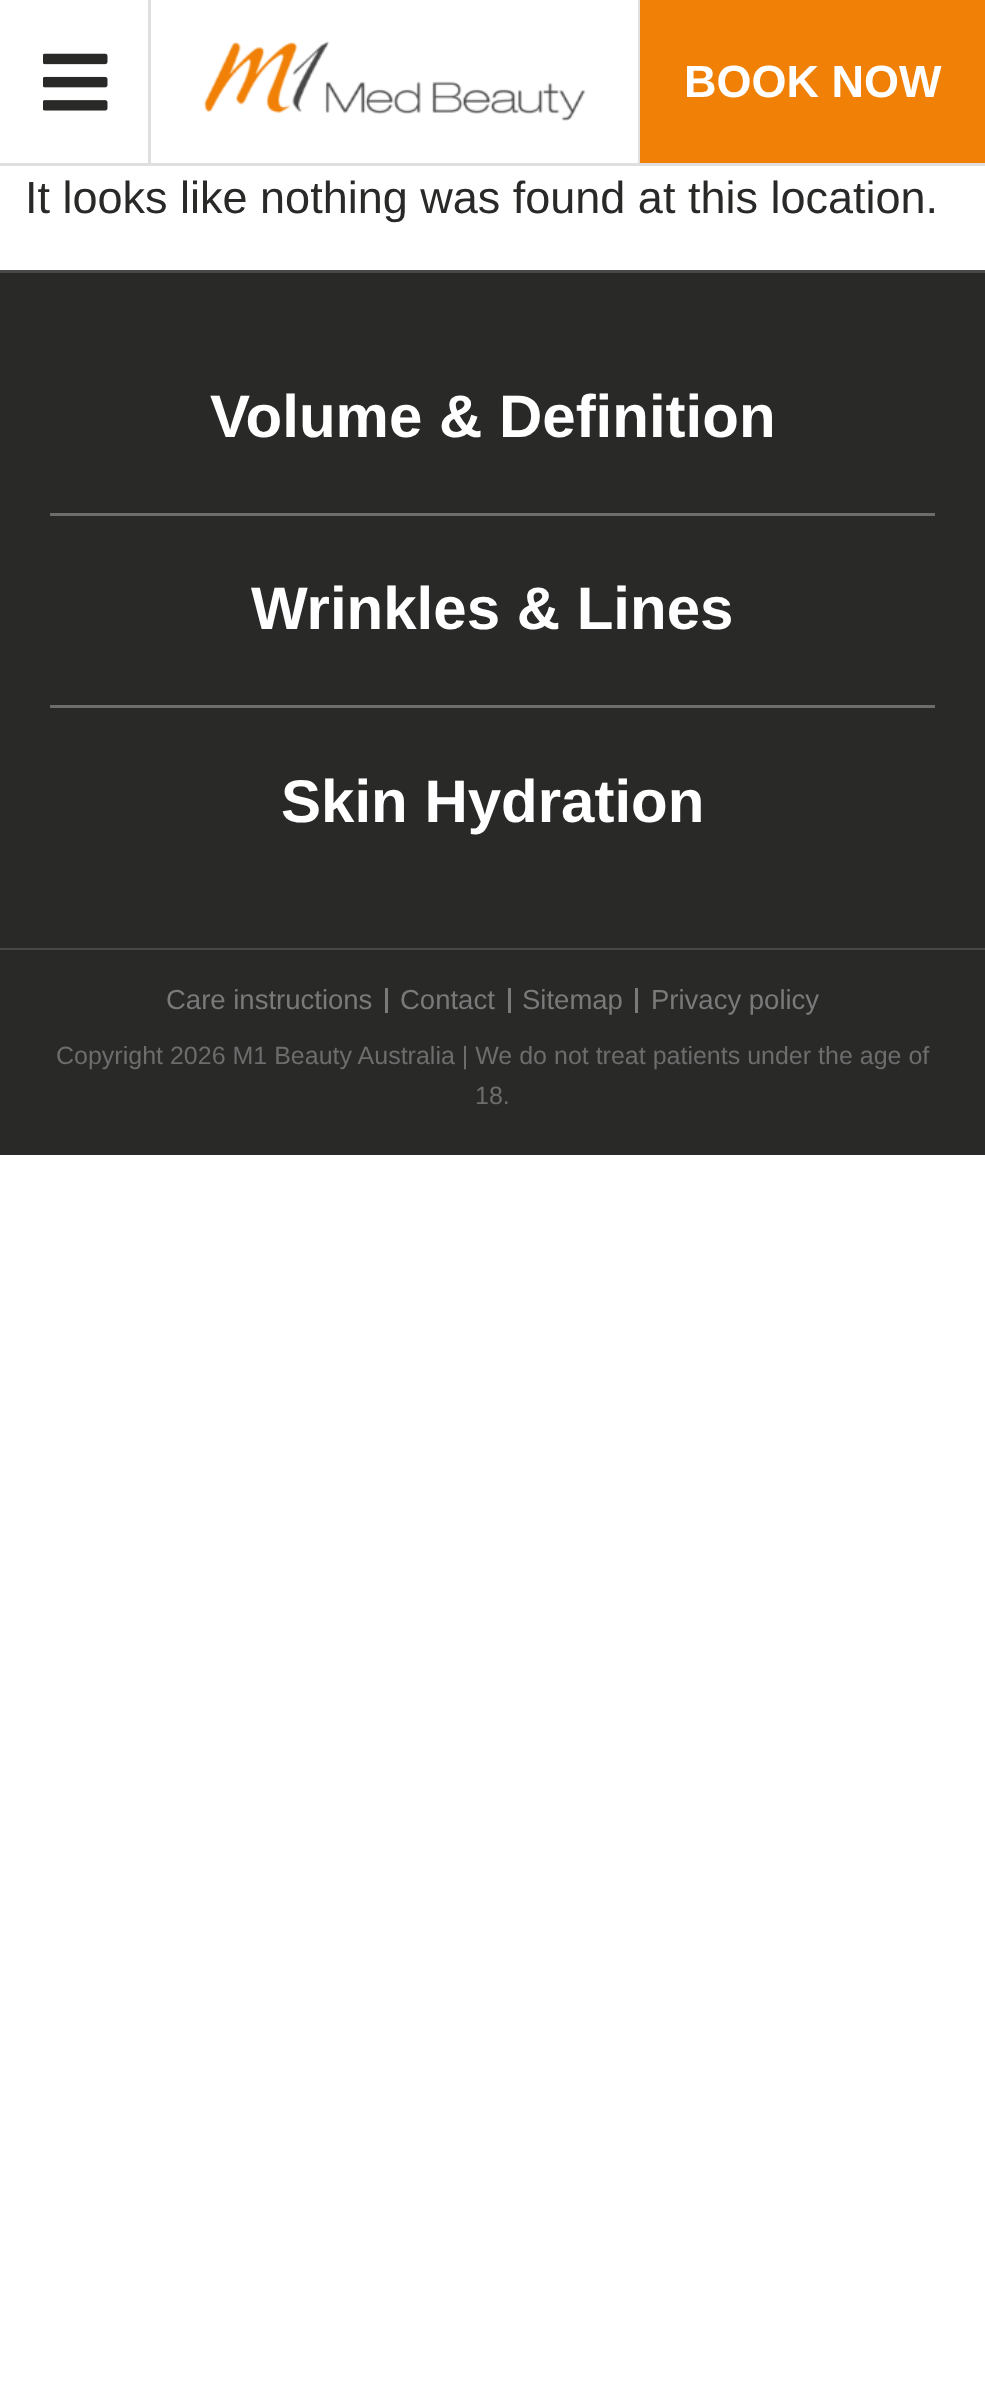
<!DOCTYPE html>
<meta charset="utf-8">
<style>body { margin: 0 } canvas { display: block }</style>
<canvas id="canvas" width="985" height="2391"></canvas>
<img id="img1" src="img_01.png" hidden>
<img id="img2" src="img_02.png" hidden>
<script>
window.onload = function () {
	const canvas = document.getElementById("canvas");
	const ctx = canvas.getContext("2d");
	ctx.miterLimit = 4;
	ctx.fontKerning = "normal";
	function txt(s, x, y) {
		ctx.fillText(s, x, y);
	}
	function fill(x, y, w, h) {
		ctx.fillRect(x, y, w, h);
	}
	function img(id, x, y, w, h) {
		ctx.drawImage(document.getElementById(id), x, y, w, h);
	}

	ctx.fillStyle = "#FFFFFF";
	fill(0, 0, 985, 2391);
	ctx.fillStyle = "#DFDFDF";
	fill(0, 163, 985, 3);
	img("img1", 43, 53, 65, 58);
	fill(638, 0, 2, 163);
	fill(148, 0, 3, 163);
	img("img2", 204, 41, 382, 80);
	ctx.fillStyle = "#F08006";
	fill(640, 0, 345, 163);
	ctx.fillStyle = "#292928";
	fill(0, 273, 985, 675);
	ctx.fillStyle = "#484847";
	fill(0, 948, 985, 2);
	fill(0, 270, 985, 3);
	ctx.fillStyle = "#6D6D6D";
	fill(50, 513, 885, 3);
	fill(50, 705, 885, 3);
	ctx.fillStyle = "#292928";
	fill(0, 950, 985, 205);
	ctx.fillStyle = "#7A7A7A";
	fill(385, 988, 3, 25);
	fill(508, 988, 3, 25);
	fill(635, 988, 3, 25);
	ctx.font = "bold 45px Liberation Sans";
	ctx.fillStyle = "#FFFFFF";
	txt("BOOK NOW", 684, 97);
	ctx.font = "45px Liberation Sans";
	ctx.fillStyle = "#292928";
	txt("It looks like nothing was found at this location.", 25, 213);
	ctx.font = "bold 60px Liberation Sans";
	ctx.fillStyle = "#FFFFFF";
	txt("Volume & Definition", 210, 437);
	txt("Wrinkles & Lines", 251, 629);
	txt("Skin Hydration", 281, 822);
	ctx.font = "27.5px Liberation Sans";
	ctx.fillStyle = "#7A7A7A";
	txt("Care instructions", 166, 1009);
	txt("Contact", 400, 1009);
	txt("Sitemap", 522, 1009);
	txt("Privacy policy", 651, 1009);
	ctx.font = "25px Liberation Sans";
	ctx.fillStyle = "#6D6D6D";
	txt("Copyright 2026 M1 Beauty Australia | We do not treat patients under the age of", 56, 1064);
	txt("18.", 475, 1104);
};
</script>
